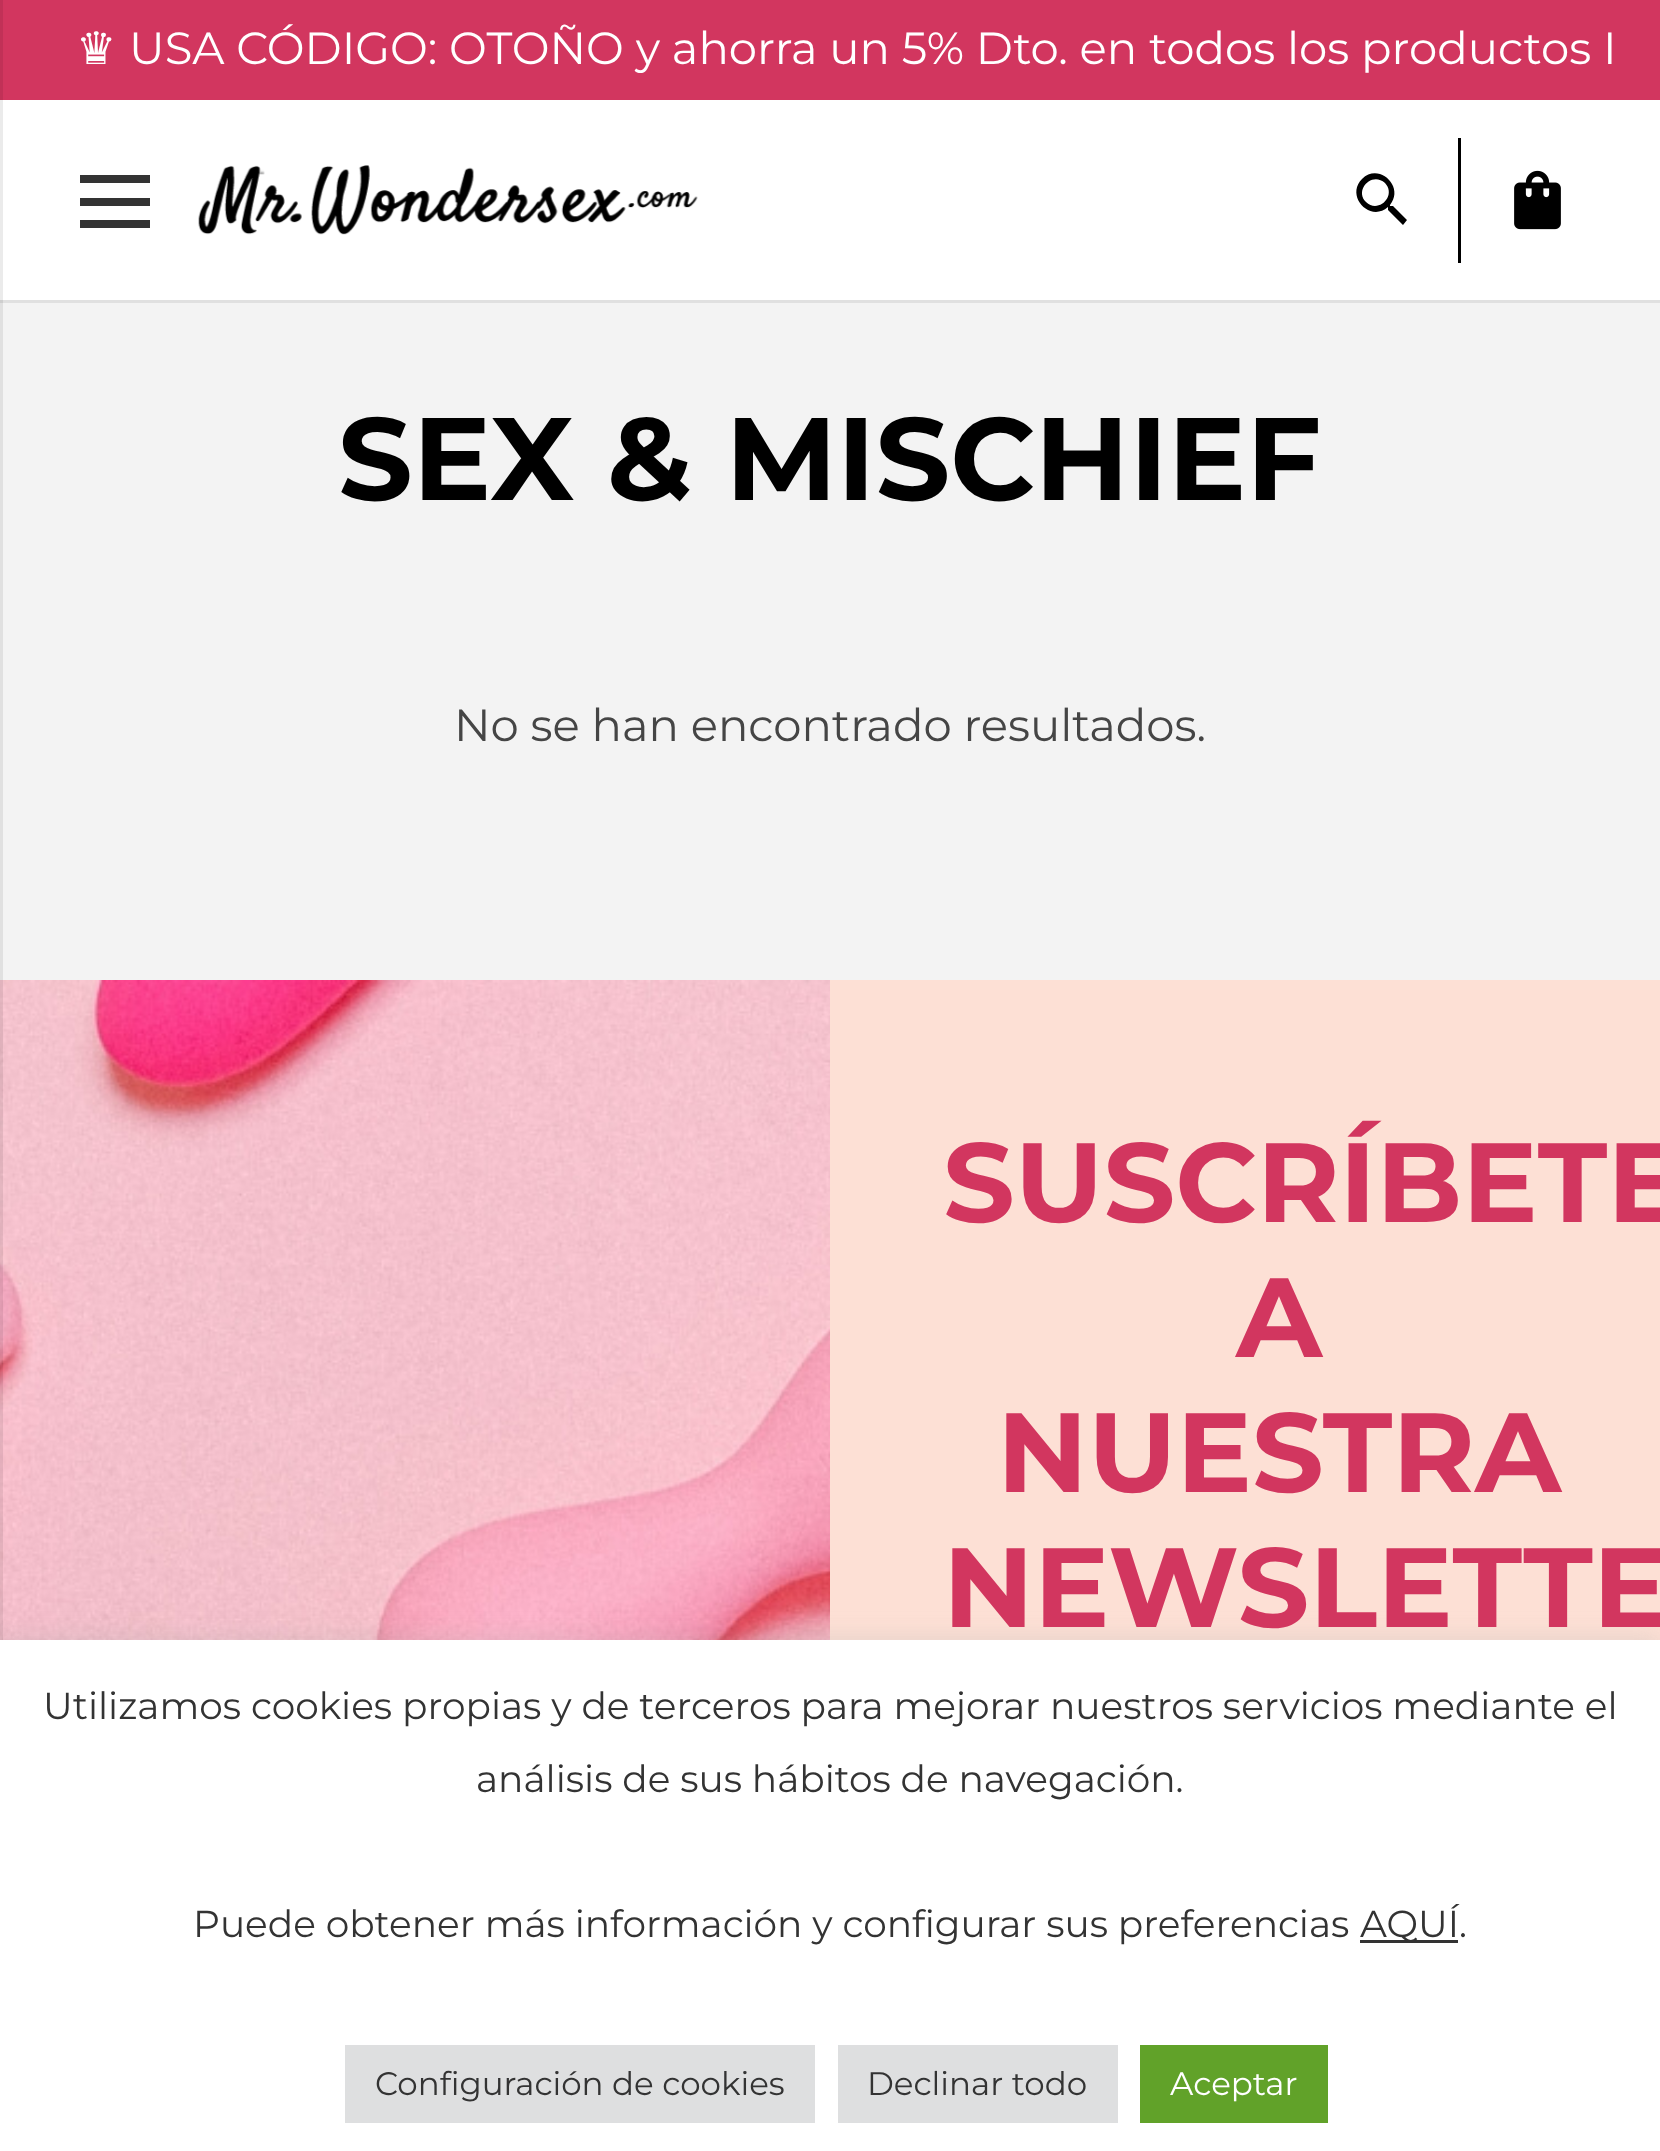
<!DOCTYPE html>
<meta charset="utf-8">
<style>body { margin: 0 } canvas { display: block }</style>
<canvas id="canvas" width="1660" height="2151"></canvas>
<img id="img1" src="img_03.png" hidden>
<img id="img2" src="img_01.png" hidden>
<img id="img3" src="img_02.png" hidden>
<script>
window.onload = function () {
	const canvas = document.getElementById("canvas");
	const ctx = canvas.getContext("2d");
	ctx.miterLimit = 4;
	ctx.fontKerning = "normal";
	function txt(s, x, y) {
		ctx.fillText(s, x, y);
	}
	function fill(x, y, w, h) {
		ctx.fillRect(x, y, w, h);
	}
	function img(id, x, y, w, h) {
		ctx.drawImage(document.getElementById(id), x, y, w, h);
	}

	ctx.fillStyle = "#F3F3F3";
	fill(0, 0, 1660, 2151);
	ctx.fillStyle = "#E0E0E0";
	fill(0, 300, 1660, 3);
	ctx.fillStyle = "#FFFFFF";
	fill(0, 100, 1660, 200);
	ctx.fillStyle = "#D2365F";
	fill(0, 0, 1660, 100);
	img("img1", 0, 980, 830, 660);
	ctx.fillStyle = "rgba(0, 0, 0, 0.08)";
	ctx.beginPath();
	ctx.moveTo(-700, 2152);
	ctx.lineTo(-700, 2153);
	ctx.lineTo(3, 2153);
	ctx.lineTo(3, 0);
	ctx.lineTo(0, 0);
	ctx.lineTo(0, 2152);
	ctx.closePath();
	ctx.fill();
	ctx.fillStyle = "#333333";
	fill(80, 198, 70, 8);
	fill(80, 175, 70, 8);
	fill(80, 220, 70, 8);
	img("img2", 198, 165, 500, 70);
	ctx.fillStyle = "#000000";
	fill(1458, 138, 3, 125);
	ctx.beginPath();
	ctx.moveTo(1366, 202);
	ctx.bezierCurveTo(1378, 214, 1397, 196, 1385, 183);
	ctx.bezierCurveTo(1372, 171, 1354, 190, 1366, 202);
	ctx.closePath();
	ctx.moveTo(1393, 206);
	ctx.lineTo(1407, 220);
	ctx.lineTo(1403, 225);
	ctx.lineTo(1388, 210);
	ctx.lineTo(1388, 208);
	ctx.lineTo(1388, 207);
	ctx.bezierCurveTo(1370, 223, 1345, 196, 1362, 179);
	ctx.bezierCurveTo(1379, 162, 1405, 187, 1390, 205);
	ctx.lineTo(1390, 206);
	ctx.closePath();
	ctx.fill();
	img("img3", 1514, 170, 47, 60);
	ctx.fillStyle = "#FDE0D5";
	fill(830, 980, 830, 660);
	ctx.fillStyle = "rgba(172, 171, 171, 0.3)";
	ctx.filter = "blur(12.5px)";
	ctx.beginPath();
	ctx.rect(0, 1638, 1660, 512);
	ctx.fill();
	ctx.filter = "none";
	ctx.fillStyle = "#FFFFFF";
	fill(0, 1640, 1660, 511);
	ctx.fillStyle = "#333333";
	fill(1360, 1940, 98, 3);
	ctx.fillStyle = "#DEDFE0";
	fill(345, 2045, 470, 78);
	fill(838, 2045, 280, 78);
	ctx.fillStyle = "#61A229";
	fill(1140, 2045, 188, 78);
	ctx.font = "45px DejaVu Sans";
	ctx.fillStyle = "#FFFFFF";
	txt("♛", 76, 64);
	ctx.font = "45px Montserrat";
	txt("USA CÓDIGO: OTOÑO y ahorra un 5% Dto. en todos los productos I", 129, 64);
	ctx.font = "bold 117px Montserrat";
	ctx.fillStyle = "#000000";
	txt("SEX & MISCHIEF", 338, 500);
	ctx.font = "45px Montserrat";
	ctx.fillStyle = "#454545";
	txt("No se han encontrado resultados.", 454, 741);
	ctx.font = "bold 112.5px Montserrat";
	ctx.fillStyle = "#D2365F";
	txt("SUSCRÍBETE", 943, 1222);
	txt("A", 1236, 1357);
	txt("NUESTRA", 997, 1492);
	txt("NEWSLETTE", 943, 1627);
	ctx.font = "37.5px Montserrat";
	ctx.fillStyle = "#333333";
	txt("Utilizamos cookies propias y de terceros para mejorar nuestros servicios mediante el", 43, 1719);
	txt("análisis de sus hábitos de navegación.", 476, 1792);
	txt("Puede obtener más información y configurar sus preferencias", 193, 1937);
	txt("AQUÍ.", 1360, 1937);
	ctx.font = "32.5px Montserrat";
	txt("Configuración de cookies", 375, 2095);
	txt("Declinar todo", 867, 2095);
	ctx.fillStyle = "#FFFFFF";
	txt("Aceptar", 1170, 2095);
};
</script>
